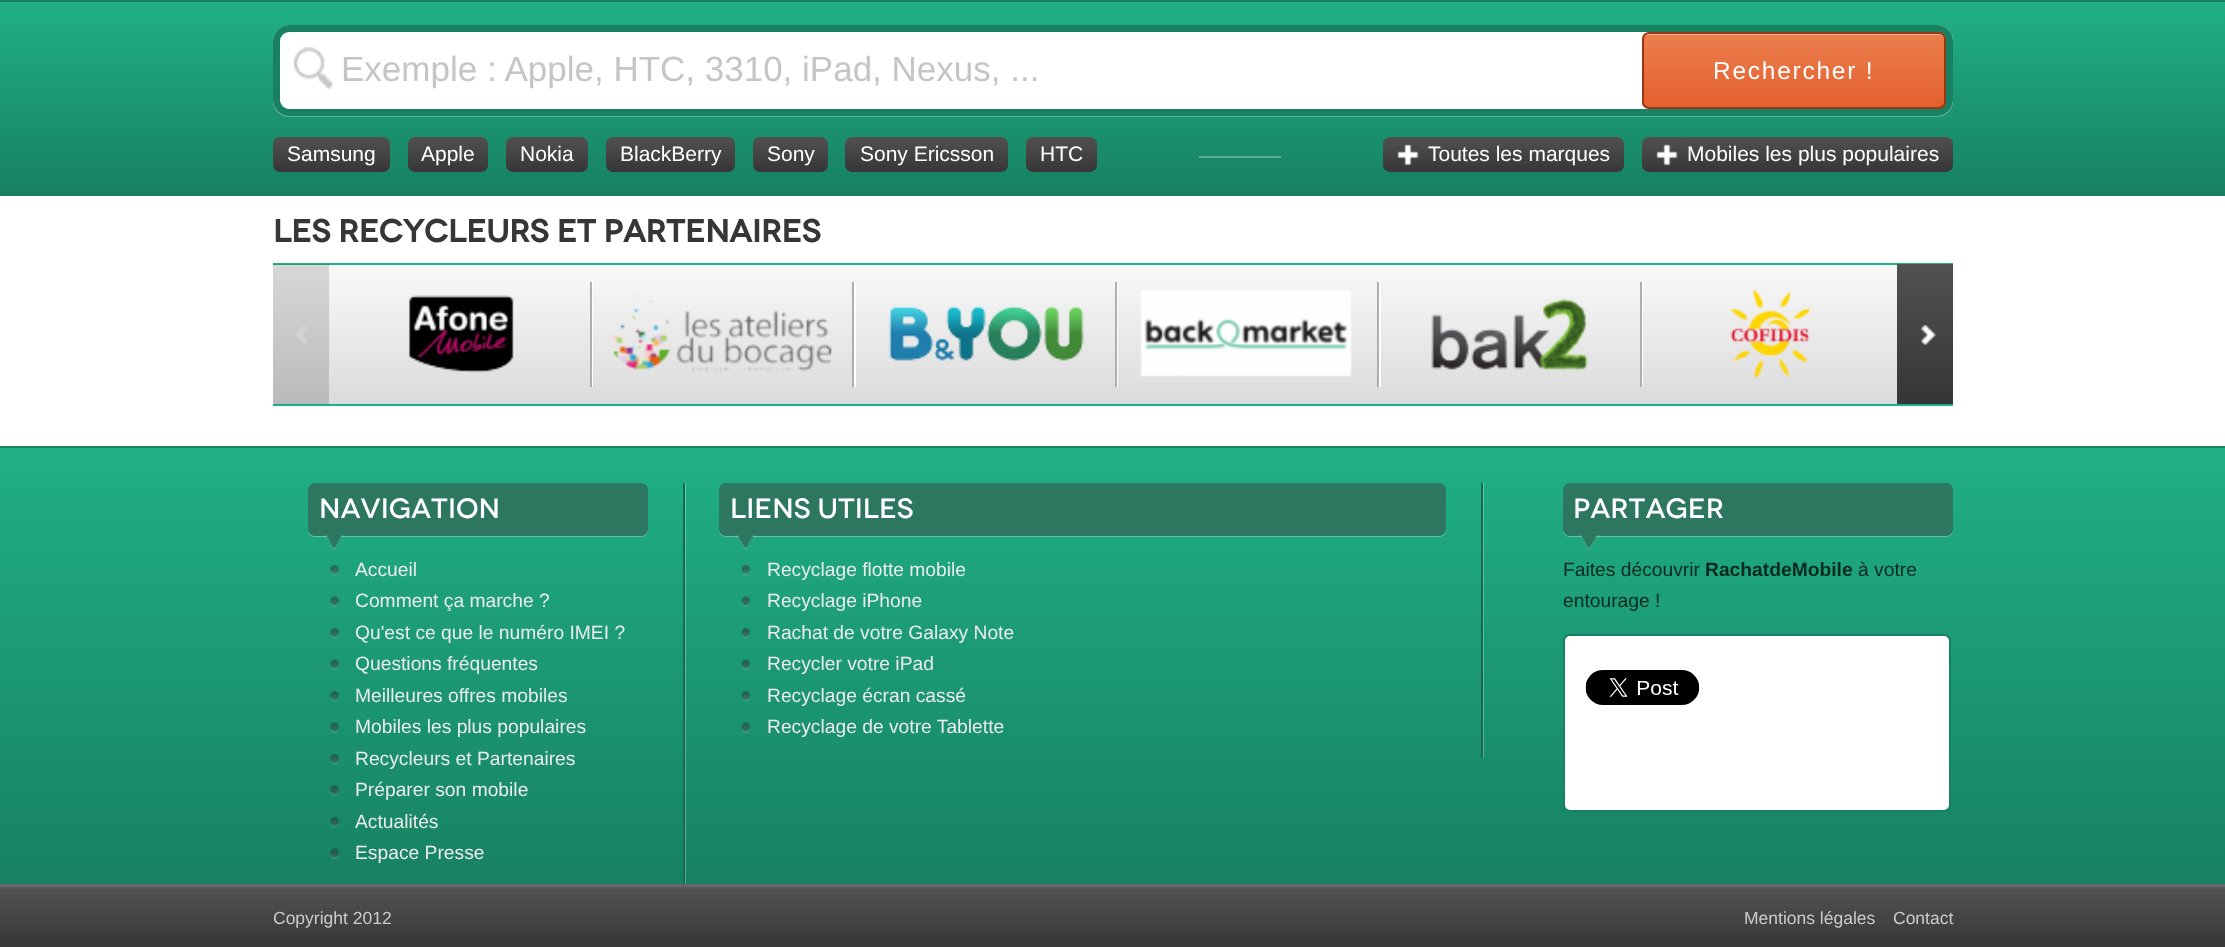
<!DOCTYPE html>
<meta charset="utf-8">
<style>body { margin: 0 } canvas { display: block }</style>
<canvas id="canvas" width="2225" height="947"></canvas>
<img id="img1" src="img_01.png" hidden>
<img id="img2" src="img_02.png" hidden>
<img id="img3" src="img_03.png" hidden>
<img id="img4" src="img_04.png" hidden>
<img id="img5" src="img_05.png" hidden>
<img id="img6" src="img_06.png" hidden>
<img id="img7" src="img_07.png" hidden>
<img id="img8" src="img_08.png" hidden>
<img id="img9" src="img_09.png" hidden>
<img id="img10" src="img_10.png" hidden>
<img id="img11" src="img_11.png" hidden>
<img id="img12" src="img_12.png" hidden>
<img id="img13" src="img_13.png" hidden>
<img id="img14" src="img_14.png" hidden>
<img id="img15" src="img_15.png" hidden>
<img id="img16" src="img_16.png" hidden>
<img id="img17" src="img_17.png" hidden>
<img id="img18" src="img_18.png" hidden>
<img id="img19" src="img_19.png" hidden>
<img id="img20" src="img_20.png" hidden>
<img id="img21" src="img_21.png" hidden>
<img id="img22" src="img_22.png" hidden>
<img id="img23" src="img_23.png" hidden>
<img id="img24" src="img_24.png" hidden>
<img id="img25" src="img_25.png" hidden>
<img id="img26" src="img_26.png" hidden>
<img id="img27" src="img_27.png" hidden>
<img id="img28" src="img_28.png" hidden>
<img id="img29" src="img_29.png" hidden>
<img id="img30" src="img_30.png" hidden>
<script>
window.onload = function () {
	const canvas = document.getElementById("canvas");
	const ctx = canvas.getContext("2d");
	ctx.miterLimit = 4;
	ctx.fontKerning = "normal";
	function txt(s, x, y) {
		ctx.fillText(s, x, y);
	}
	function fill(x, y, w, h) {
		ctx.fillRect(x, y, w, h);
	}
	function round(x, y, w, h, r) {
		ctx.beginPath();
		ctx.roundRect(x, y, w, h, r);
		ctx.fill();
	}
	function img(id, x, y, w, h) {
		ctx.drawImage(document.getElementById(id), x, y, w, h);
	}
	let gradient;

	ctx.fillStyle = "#FFFFFF";
	fill(0, 0, 2225, 947);
	gradient = ctx.createLinearGradient(1113, -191, 1113, 1.8);
	gradient.addColorStop(0, "#20B085");
	gradient.addColorStop(1, "#178162");
	ctx.fillStyle = gradient;
	fill(0, 0, 2225, 2);
	gradient = ctx.createLinearGradient(1113, 1.7, 1113, 194);
	gradient.addColorStop(0, "#20B085");
	gradient.addColorStop(1, "#178162");
	ctx.fillStyle = gradient;
	fill(0, 2, 2225, 192);
	ctx.fillStyle = "#178162";
	fill(0, 194, 2225, 2);
	ctx.fillStyle = "#5FB49B";
	ctx.beginPath();
	ctx.moveTo(273, 100);
	ctx.lineTo(273, 101);
	ctx.bezierCurveTo(273, 110, 280, 117, 289, 117);
	ctx.lineTo(1937, 117);
	ctx.bezierCurveTo(1946, 117, 1953, 110, 1953, 101);
	ctx.lineTo(1953, 100);
	ctx.bezierCurveTo(1953, 108, 1946, 116, 1937, 116);
	ctx.lineTo(289, 116);
	ctx.bezierCurveTo(280, 116, 273, 108, 273, 100);
	ctx.closePath();
	ctx.fill();
	ctx.fillStyle = "#FFFFFF";
	round(273, 25, 1680, 91, 16);
	img("img1", 294, 47, 39, 43);
	ctx.beginPath();
	ctx.roundRect(276.5, 28.5, 1673, 84, 12.5);
	ctx.strokeStyle = "#178162";
	ctx.lineWidth = 7;
	ctx.stroke();
	ctx.save();
	ctx.beginPath();
	ctx.roundRect(1642, 32, 304, 77, 7);
	ctx.clip();
	gradient = ctx.createLinearGradient(1794, 33, 1794, 107);
	gradient.addColorStop(0, "#EC804E");
	gradient.addColorStop(1, "#E45F2E");
	ctx.fillStyle = gradient;
	fill(1642, 33, 304, 74);
	ctx.restore();
	ctx.fillStyle = "#F4B294";
	ctx.beginPath();
	ctx.moveTo(1648, 35);
	ctx.lineTo(1939, 35);
	ctx.bezierCurveTo(1942, 35, 1944, 37, 1944, 40);
	ctx.bezierCurveTo(1944, 37, 1943, 33, 1939, 33);
	ctx.lineTo(1648, 33);
	ctx.bezierCurveTo(1644, 33, 1643, 37, 1643, 40);
	ctx.bezierCurveTo(1643, 37, 1646, 35, 1648, 35);
	ctx.closePath();
	ctx.fill();
	ctx.beginPath();
	ctx.roundRect(1643, 33, 302, 75, 6);
	ctx.strokeStyle = "#983714";
	ctx.lineWidth = 2;
	ctx.stroke();
	gradient = ctx.createLinearGradient(332, 137, 332, 172);
	gradient.addColorStop(0, "#515151");
	gradient.addColorStop(1, "#363636");
	ctx.fillStyle = gradient;
	round(273, 137, 117, 35, 7);
	gradient = ctx.createLinearGradient(448, 137, 448, 172);
	gradient.addColorStop(0, "#515151");
	gradient.addColorStop(1, "#363636");
	ctx.fillStyle = gradient;
	round(408, 137, 80, 35, 7);
	gradient = ctx.createLinearGradient(547, 137, 547, 172);
	gradient.addColorStop(0, "#515151");
	gradient.addColorStop(1, "#363636");
	ctx.fillStyle = gradient;
	round(506, 137, 82, 35, 7);
	gradient = ctx.createLinearGradient(670, 137, 670, 172);
	gradient.addColorStop(0, "#515151");
	gradient.addColorStop(1, "#363636");
	ctx.fillStyle = gradient;
	round(606, 137, 129, 35, 7);
	gradient = ctx.createLinearGradient(790, 137, 790, 172);
	gradient.addColorStop(0, "#515151");
	gradient.addColorStop(1, "#363636");
	ctx.fillStyle = gradient;
	round(753, 137, 75, 35, 7);
	gradient = ctx.createLinearGradient(927, 137, 927, 172);
	gradient.addColorStop(0, "#515151");
	gradient.addColorStop(1, "#363636");
	ctx.fillStyle = gradient;
	round(845, 137, 163, 35, 7);
	gradient = ctx.createLinearGradient(1061, 137, 1061, 172);
	gradient.addColorStop(0, "#515151");
	gradient.addColorStop(1, "#363636");
	ctx.fillStyle = gradient;
	round(1026, 137, 71, 35, 7);
	ctx.fillStyle = "#5EAD96";
	fill(1199, 156, 82, 2);
	gradient = ctx.createLinearGradient(1405, 137, 1405, 172);
	gradient.addColorStop(0, "#515151");
	gradient.addColorStop(1, "#363636");
	ctx.fillStyle = gradient;
	ctx.beginPath();
	ctx.roundRect(1383, 137, 45, 35, [7, 0, 0, 7]);
	ctx.fill();
	gradient = ctx.createLinearGradient(1526, 137, 1526, 172);
	gradient.addColorStop(0, "#515151");
	gradient.addColorStop(1, "#363636");
	ctx.fillStyle = gradient;
	ctx.beginPath();
	ctx.roundRect(1428, 137, 196, 35, [0, 7, 7, 0]);
	ctx.fill();
	img("img2", 1397, 144, 22, 22);
	gradient = ctx.createLinearGradient(1664, 137, 1664, 172);
	gradient.addColorStop(0, "#515151");
	gradient.addColorStop(1, "#363636");
	ctx.fillStyle = gradient;
	ctx.beginPath();
	ctx.roundRect(1642, 137, 45, 35, [7, 0, 0, 7]);
	ctx.fill();
	gradient = ctx.createLinearGradient(1820, 136, 1820, 172);
	gradient.addColorStop(0, "#515151");
	gradient.addColorStop(1, "#363636");
	ctx.fillStyle = gradient;
	ctx.beginPath();
	ctx.roundRect(1687, 137, 266, 35, [0, 7, 7, 0]);
	ctx.fill();
	img("img2", 1656, 144, 22, 22);
	gradient = ctx.createLinearGradient(1113, 199, 1113, 404);
	gradient.addColorStop(0.31, "#F9F9F9");
	gradient.addColorStop(1, "#DBDBDB");
	ctx.fillStyle = gradient;
	fill(273, 265, 1624, 139);
	ctx.fillStyle = "#20B085";
	fill(273, 404, 1680, 2);
	fill(273, 263, 1680, 2);
	gradient = ctx.createLinearGradient(301, 264, 301, 404);
	gradient.addColorStop(0, "rgba(81, 81, 81, 0.2)");
	gradient.addColorStop(1, "rgba(54, 54, 54, 0.2)");
	ctx.fillStyle = gradient;
	fill(273, 264, 56, 140);
	img("img3", 295, 325, 13, 19);
	ctx.fillStyle = "#FFFFFF";
	ctx.beginPath();
	ctx.moveTo(331, 387);
	ctx.lineTo(593, 387);
	ctx.lineTo(593, 282);
	ctx.lineTo(592, 282);
	ctx.lineTo(592, 387);
	ctx.closePath();
	ctx.fill();
	ctx.fillStyle = "#AEAEAE";
	fill(590, 282, 2, 105);
	img("img4", 409, 295, 105, 78);
	ctx.fillStyle = "#FFFFFF";
	ctx.beginPath();
	ctx.moveTo(593, 387);
	ctx.lineTo(856, 387);
	ctx.lineTo(856, 282);
	ctx.lineTo(854, 282);
	ctx.lineTo(854, 387);
	ctx.closePath();
	ctx.fill();
	ctx.fillStyle = "#AEAEAE";
	fill(852, 282, 2, 105);
	img("img5", 612, 293, 220, 80);
	ctx.fillStyle = "#FFFFFF";
	ctx.beginPath();
	ctx.moveTo(856, 387);
	ctx.lineTo(1118, 387);
	ctx.lineTo(1118, 282);
	ctx.lineTo(1116, 282);
	ctx.lineTo(1116, 387);
	ctx.closePath();
	ctx.fill();
	ctx.fillStyle = "#AEAEAE";
	fill(1115, 282, 2, 105);
	img("img6", 888, 305, 196, 56);
	ctx.fillStyle = "#FFFFFF";
	ctx.beginPath();
	ctx.moveTo(1118, 387);
	ctx.lineTo(1381, 387);
	ctx.lineTo(1381, 282);
	ctx.lineTo(1379, 282);
	ctx.lineTo(1379, 387);
	ctx.closePath();
	ctx.fill();
	ctx.fillStyle = "#AEAEAE";
	fill(1377, 282, 2, 105);
	img("img7", 1140, 290, 212, 87);
	ctx.fillStyle = "#FFFFFF";
	ctx.beginPath();
	ctx.moveTo(1381, 387);
	ctx.lineTo(1643, 387);
	ctx.lineTo(1643, 282);
	ctx.lineTo(1642, 282);
	ctx.lineTo(1642, 387);
	ctx.closePath();
	ctx.fill();
	ctx.fillStyle = "#AEAEAE";
	fill(1640, 282, 2, 105);
	img("img8", 1431, 298, 157, 72);
	img("img9", 1730, 290, 80, 88);
	gradient = ctx.createLinearGradient(1925, 264, 1925, 404);
	gradient.addColorStop(0, "#515151");
	gradient.addColorStop(1, "#363636");
	ctx.fillStyle = gradient;
	fill(1897, 264, 56, 140);
	img("img10", 1921, 324, 15, 21);
	gradient = ctx.createLinearGradient(1113, 10, 1113, 448);
	gradient.addColorStop(0, "#20B085");
	gradient.addColorStop(1, "#178162");
	ctx.fillStyle = gradient;
	fill(0, 446, 2225, 2);
	gradient = ctx.createLinearGradient(1113, 448, 1113, 886);
	gradient.addColorStop(0, "#20B085");
	gradient.addColorStop(1, "#178162");
	ctx.fillStyle = gradient;
	fill(0, 448, 2225, 436);
	ctx.fillStyle = "rgba(255, 255, 255, 0.3)";
	ctx.beginPath();
	ctx.moveTo(310, 884);
	ctx.lineTo(686, 884);
	ctx.lineTo(686, 483);
	ctx.lineTo(684, 483);
	ctx.lineTo(684, 884);
	ctx.closePath();
	ctx.fill();
	ctx.fillStyle = "#136B52";
	fill(683, 483, 2, 401);
	ctx.fillStyle = "rgba(255, 255, 255, 0.3)";
	ctx.beginPath();
	ctx.moveTo(308, 528);
	ctx.lineTo(308, 530);
	ctx.bezierCurveTo(308, 534, 311, 537, 315, 537);
	ctx.lineTo(641, 537);
	ctx.bezierCurveTo(645, 537, 648, 534, 648, 530);
	ctx.lineTo(648, 492);
	ctx.lineTo(647, 489);
	ctx.lineTo(648, 528);
	ctx.bezierCurveTo(648, 532, 644, 536, 640, 536);
	ctx.lineTo(315, 536);
	ctx.bezierCurveTo(311, 536, 308, 532, 308, 528);
	ctx.closePath();
	ctx.fill();
	ctx.fillStyle = "#2D7761";
	round(308, 483, 340, 53, 7);
	img("img11", 323, 535, 22, 15);
	img("img12", 329, 565, 11, 11);
	img("img13", 329, 596, 11, 11);
	img("img14", 329, 628, 11, 11);
	img("img15", 329, 659, 11, 11);
	img("img16", 329, 691, 11, 11);
	img("img17", 329, 722, 11, 11);
	img("img18", 329, 754, 11, 11);
	img("img19", 329, 785, 11, 11);
	img("img20", 329, 817, 11, 11);
	img("img21", 329, 848, 11, 11);
	ctx.fillStyle = "rgba(255, 255, 255, 0.3)";
	ctx.beginPath();
	ctx.moveTo(721, 758);
	ctx.lineTo(1484, 758);
	ctx.lineTo(1484, 483);
	ctx.lineTo(1482, 483);
	ctx.lineTo(1482, 758);
	ctx.closePath();
	ctx.fill();
	ctx.fillStyle = "#136B52";
	fill(1481, 483, 2, 275);
	ctx.fillStyle = "rgba(255, 255, 255, 0.3)";
	ctx.beginPath();
	ctx.moveTo(719, 490);
	ctx.lineTo(719, 530);
	ctx.bezierCurveTo(719, 534, 722, 537, 726, 537);
	ctx.lineTo(1439, 537);
	ctx.bezierCurveTo(1443, 537, 1446, 534, 1446, 530);
	ctx.lineTo(1446, 492);
	ctx.lineTo(1445, 489);
	ctx.lineTo(1446, 528);
	ctx.bezierCurveTo(1446, 532, 1442, 536, 1438, 536);
	ctx.lineTo(726, 536);
	ctx.bezierCurveTo(722, 536, 719, 532, 719, 528);
	ctx.closePath();
	ctx.fill();
	ctx.fillStyle = "#2D7761";
	round(719, 483, 727, 53, 7);
	img("img22", 735, 535, 21, 15);
	img("img23", 740, 565, 11, 11);
	img("img24", 740, 596, 11, 11);
	img("img25", 740, 628, 11, 11);
	img("img26", 740, 659, 11, 11);
	img("img27", 740, 691, 11, 11);
	img("img28", 740, 722, 11, 11);
	ctx.fillStyle = "#62C1A5";
	ctx.beginPath();
	ctx.moveTo(1563, 530);
	ctx.bezierCurveTo(1563, 534, 1566, 537, 1570, 537);
	ctx.lineTo(1946, 537);
	ctx.bezierCurveTo(1950, 537, 1953, 534, 1953, 530);
	ctx.lineTo(1953, 528);
	ctx.bezierCurveTo(1953, 532, 1950, 536, 1946, 536);
	ctx.lineTo(1570, 536);
	ctx.bezierCurveTo(1567, 536, 1564, 533, 1563, 530);
	ctx.closePath();
	ctx.fill();
	ctx.fillStyle = "#2D7761";
	round(1563, 483, 390, 53, 7);
	img("img29", 1578, 535, 22, 15);
	ctx.fillStyle = "#FFFFFF";
	ctx.beginPath();
	ctx.roundRect(1564, 635, 386, 176, 6);
	ctx.fill();
	ctx.strokeStyle = "#178162";
	ctx.stroke();
	img("img30", 1585, 670, 115, 35);
	ctx.fillStyle = "#666666";
	fill(0, 884, 2225, 3);
	gradient = ctx.createLinearGradient(1113, 889, 1113, 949);
	gradient.addColorStop(0, "#515151");
	gradient.addColorStop(1, "#363636");
	ctx.fillStyle = gradient;
	fill(0, 889, 2225, 58);
	ctx.fillStyle = "#585858";
	fill(0, 887, 2225, 2);
	ctx.font = "35px Liberation Sans";
	ctx.fillStyle = "#C5C5C5";
	txt("Exemple : Apple, HTC, 3310, iPad, Nexus, ...", 341, 81);
	ctx.letterSpacing = "1.75px";
	ctx.font = "24.5px Liberation Sans";
	ctx.fillStyle = "#FFFFFF";
	txt("Rechercher !", 1713, 79);
	ctx.letterSpacing = "0px";
	ctx.font = "21px Liberation Sans";
	txt("Samsung", 287, 161);
	txt("Apple", 421, 161);
	txt("Nokia", 520, 161);
	txt("BlackBerry", 620, 161);
	txt("Sony", 767, 161);
	txt("Sony Ericsson", 860, 161);
	txt("HTC", 1040, 161);
	txt("Toutes les marques", 1428, 161);
	txt("Mobiles les plus populaires", 1687, 161);
	ctx.font = "bold 31.5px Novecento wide";
	ctx.fillStyle = "#363636";
	txt("Les recycleurs et partenaires", 273, 242);
	ctx.font = "500 28px Novecento wide";
	ctx.fillStyle = "#FFFFFF";
	txt("Navigation", 319, 518);
	ctx.font = "19.25px Liberation Sans";
	ctx.fillStyle = "#EBEBEB";
	txt("Accueil", 355, 576);
	txt("Comment ça marche ?", 355, 607);
	txt("Qu'est ce que le numéro IMEI ?", 355, 639);
	txt("Questions fréquentes", 355, 670);
	txt("Meilleures offres mobiles", 355, 702);
	txt("Mobiles les plus populaires", 355, 733);
	txt("Recycleurs et Partenaires", 355, 765);
	txt("Préparer son mobile", 355, 796);
	txt("Actualités", 355, 828);
	txt("Espace Presse", 355, 859);
	ctx.font = "500 28px Novecento wide";
	ctx.fillStyle = "#FFFFFF";
	txt("Liens utiles", 730, 518);
	ctx.font = "19.25px Liberation Sans";
	ctx.fillStyle = "#EBEBEB";
	txt("Recyclage flotte mobile", 767, 576);
	txt("Recyclage iPhone", 767, 607);
	txt("Rachat de votre Galaxy Note", 767, 639);
	txt("Recycler votre iPad", 767, 670);
	txt("Recyclage écran cassé", 767, 702);
	txt("Recyclage de votre Tablette", 767, 733);
	ctx.font = "500 28px Novecento wide";
	ctx.fillStyle = "#FFFFFF";
	txt("Partager", 1573, 518);
	ctx.font = "19.25px Liberation Sans";
	ctx.fillStyle = "#082A20";
	txt("Faites découvrir", 1563, 576);
	ctx.font = "bold 19.25px Liberation Sans";
	txt("RachatdeMobile", 1705, 576);
	ctx.font = "19.25px Liberation Sans";
	txt("à votre", 1858, 576);
	txt("entourage !", 1563, 607);
	ctx.font = "17.5px Liberation Sans";
	ctx.fillStyle = "#CDCCCC";
	txt("Copyright 2012", 273, 924);
	txt("Mentions légales", 1744, 924);
	txt("Contact", 1893, 924);
};
</script>
